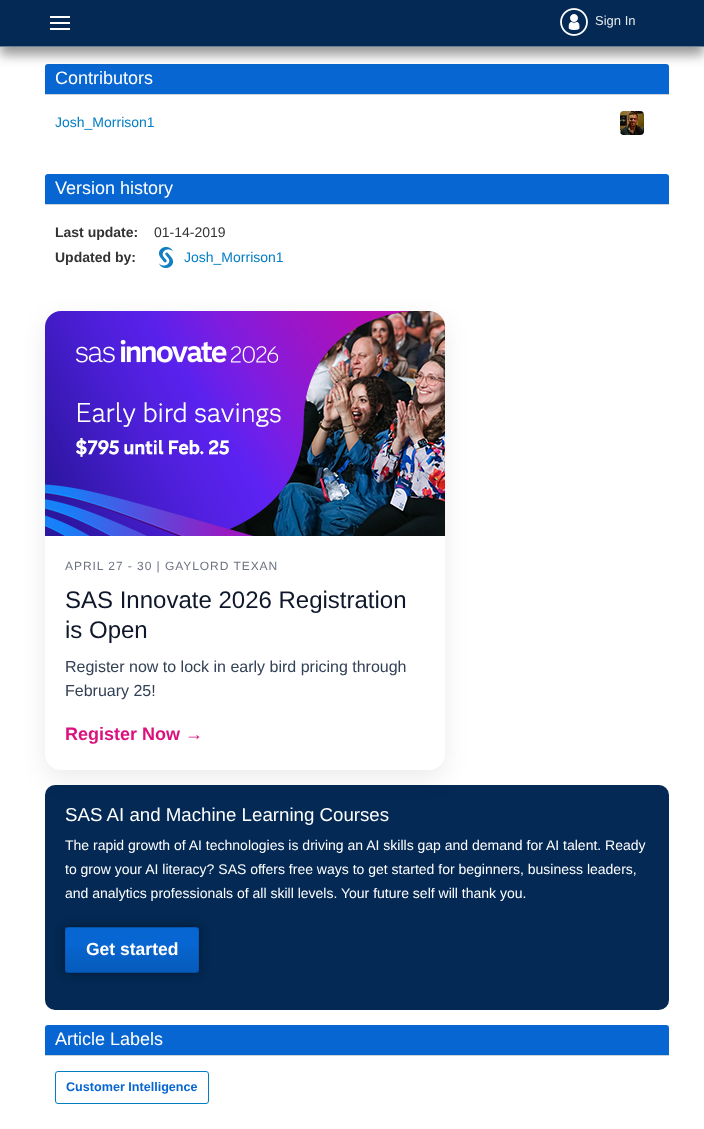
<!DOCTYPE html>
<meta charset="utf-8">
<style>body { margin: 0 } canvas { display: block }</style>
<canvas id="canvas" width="704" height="1129"></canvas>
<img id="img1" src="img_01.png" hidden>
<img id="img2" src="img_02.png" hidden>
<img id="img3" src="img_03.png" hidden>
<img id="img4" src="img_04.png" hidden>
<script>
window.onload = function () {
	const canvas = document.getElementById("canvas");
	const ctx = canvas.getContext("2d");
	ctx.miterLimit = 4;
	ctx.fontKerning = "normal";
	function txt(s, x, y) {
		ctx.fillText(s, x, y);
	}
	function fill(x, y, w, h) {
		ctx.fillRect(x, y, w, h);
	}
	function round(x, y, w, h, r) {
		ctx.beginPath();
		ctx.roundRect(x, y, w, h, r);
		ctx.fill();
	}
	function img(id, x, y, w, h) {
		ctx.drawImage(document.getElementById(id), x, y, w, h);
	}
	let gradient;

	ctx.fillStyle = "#FFFFFF";
	fill(0, 0, 704, 1129);
	ctx.fillStyle = "#0766D1";
	ctx.beginPath();
	ctx.roundRect(45, 64, 624, 31, [3, 3, 0, 0]);
	ctx.fill();
	ctx.fillStyle = "rgba(0, 0, 0, 0.4)";
	ctx.filter = "blur(6px)";
	ctx.beginPath();
	ctx.rect(0, 8, 704, 47);
	ctx.fill();
	ctx.filter = "none";
	ctx.fillStyle = "#032954";
	fill(0, 0, 704, 46);
	ctx.fillStyle = "#687F98";
	fill(0, 46, 704, 1);
	ctx.fillStyle = "#FFFFFF";
	fill(50, 16, 20, 2);
	fill(50, 22, 20, 2);
	fill(50, 28, 20, 2);
	img("img1", 560, 8, 28, 28);
	ctx.fillStyle = "#CBD3D5";
	fill(45, 94, 624, 1);
	ctx.filter = "blur(0.5px)";
	ctx.beginPath();
	ctx.roundRect(620, 111, 24, 24, 4);
	ctx.fill();
	ctx.filter = "none";
	img("img2", 620, 111, 24, 24);
	ctx.fillStyle = "#0766D1";
	ctx.beginPath();
	ctx.roundRect(45, 174, 624, 31, [3, 3, 0, 0]);
	ctx.fill();
	ctx.fillStyle = "#CBD3D5";
	fill(45, 204, 624, 1);
	img("img3", 159, 247, 14, 21);
	ctx.fillStyle = "#032954";
	round(45, 785, 624, 225, 10);
	ctx.fillStyle = "rgba(0, 0, 0, 0.08)";
	ctx.filter = "blur(12px)";
	ctx.beginPath();
	ctx.roundRect(45, 319, 400, 459, 16);
	ctx.fill();
	ctx.filter = "none";
	ctx.fillStyle = "#FFFFFF";
	round(45, 311, 400, 459, 16);
	img("img4", 45, 311, 400, 225);
	ctx.fillStyle = "rgba(0, 0, 0, 0.4)";
	ctx.filter = "blur(5px)";
	ctx.beginPath();
	ctx.roundRect(65, 927, 134, 46, 3);
	ctx.fill();
	ctx.filter = "none";
	ctx.fillStyle = "#0766D1";
	round(65, 927, 134, 46, 3);
	gradient = ctx.createLinearGradient(132, 884, 132, 928);
	gradient.addColorStop(0.03, "rgba(0, 0, 0, 0)");
	gradient.addColorStop(0.29, "rgba(0, 0, 0, 0)");
	gradient.addColorStop(1, "rgba(0, 0, 0, 0.1)");
	ctx.fillStyle = gradient;
	fill(65, 927, 134, 1);
	gradient = ctx.createLinearGradient(132, 928, 132, 972);
	gradient.addColorStop(0.03, "rgba(0, 0, 0, 0)");
	gradient.addColorStop(0.29, "rgba(0, 0, 0, 0)");
	gradient.addColorStop(1, "rgba(0, 0, 0, 0.1)");
	ctx.fillStyle = gradient;
	fill(65, 947, 134, 25);
	ctx.beginPath();
	ctx.moveTo(198, 972);
	ctx.lineTo(196, 972.5);
	ctx.lineTo(89.5, 972.5);
	ctx.lineTo(68, 972.5);
	ctx.lineTo(66, 972);
	ctx.strokeStyle = "rgba(0, 0, 0, 0.25)";
	ctx.stroke();
	ctx.beginPath();
	ctx.moveTo(66, 972);
	ctx.bezierCurveTo(64.5, 970, 65.5, 953.5, 65.5, 950);
	ctx.bezierCurveTo(65.5, 921.5, 60, 927.5, 89.5, 927.5);
	ctx.lineTo(174.5, 927.5);
	ctx.bezierCurveTo(204, 927.5, 198.5, 921.5, 198.5, 950);
	ctx.bezierCurveTo(198.5, 953.5, 199.5, 970, 198, 972);
	ctx.strokeStyle = "rgba(0, 0, 0, 0.1)";
	ctx.stroke();
	ctx.fillStyle = "#0766D1";
	ctx.beginPath();
	ctx.roundRect(45, 1025, 624, 31, [3, 3, 0, 0]);
	ctx.fill();
	ctx.fillStyle = "#CBD3D5";
	fill(45, 1055, 624, 1);
	ctx.beginPath();
	ctx.roundRect(55.5, 1071.5, 153, 32, 2.5);
	ctx.strokeStyle = "#007DC3";
	ctx.stroke();
	ctx.font = "13px Liberation Sans";
	ctx.fillStyle = "#E4E8EA";
	txt("Sign In", 595, 25);
	ctx.font = "18px Liberation Sans";
	ctx.fillStyle = "#FFFFFF";
	txt("Contributors", 55, 84);
	ctx.font = "14px Liberation Sans";
	ctx.fillStyle = "#007DC3";
	txt("Josh_Morrison1", 55, 127);
	ctx.font = "18px Liberation Sans";
	ctx.fillStyle = "#FFFFFF";
	txt("Version history", 55, 194);
	ctx.font = "bold 14px Liberation Sans";
	ctx.fillStyle = "#333333";
	txt("Last update:", 55, 237);
	ctx.font = "14px Liberation Sans";
	txt("01-14-2019", 154, 237);
	ctx.font = "bold 14px Liberation Sans";
	txt("Updated by:", 55, 262);
	ctx.font = "14px Liberation Sans";
	ctx.fillStyle = "#007DC3";
	txt("Josh_Morrison1", 184, 262);
	ctx.letterSpacing = "0.95px";
	ctx.font = "12px Liberation Sans";
	ctx.fillStyle = "#6B7280";
	txt("APRIL 27 - 30 | GAYLORD TEXAN", 65, 570);
	ctx.letterSpacing = "0px";
	ctx.font = "24px Liberation Sans";
	ctx.fillStyle = "#0F172A";
	txt("SAS Innovate 2026 Registration", 65, 608);
	txt("is Open", 65, 638);
	ctx.font = "16px Liberation Sans";
	ctx.fillStyle = "#334155";
	txt("Register now to lock in early bird pricing through", 65, 672);
	txt("February 25!", 65, 696);
	ctx.font = "bold 18px Liberation Sans";
	ctx.fillStyle = "#DB127D";
	txt("Register Now →", 65, 740);
	ctx.font = "18.7px Liberation Sans";
	ctx.fillStyle = "#FFFFFF";
	txt("SAS AI and Machine Learning Courses", 65, 821);
	ctx.font = "14px Liberation Sans";
	txt("The rapid growth of AI technologies is driving an AI skills gap and demand for AI talent. Ready", 65, 850);
	txt("to grow your AI literacy? SAS offers free ways to get started for beginners, business leaders,", 65, 874);
	txt("and analytics professionals of all skill levels. Your future self will thank you.", 65, 898);
	ctx.font = "bold 17.5px Liberation Sans";
	txt("Get started", 86, 955);
	ctx.font = "18px Liberation Sans";
	txt("Article Labels", 55, 1045);
	ctx.font = "bold 12.6px Liberation Sans";
	ctx.fillStyle = "#0766D1";
	txt("Customer Intelligence", 66, 1091);
};
</script>
